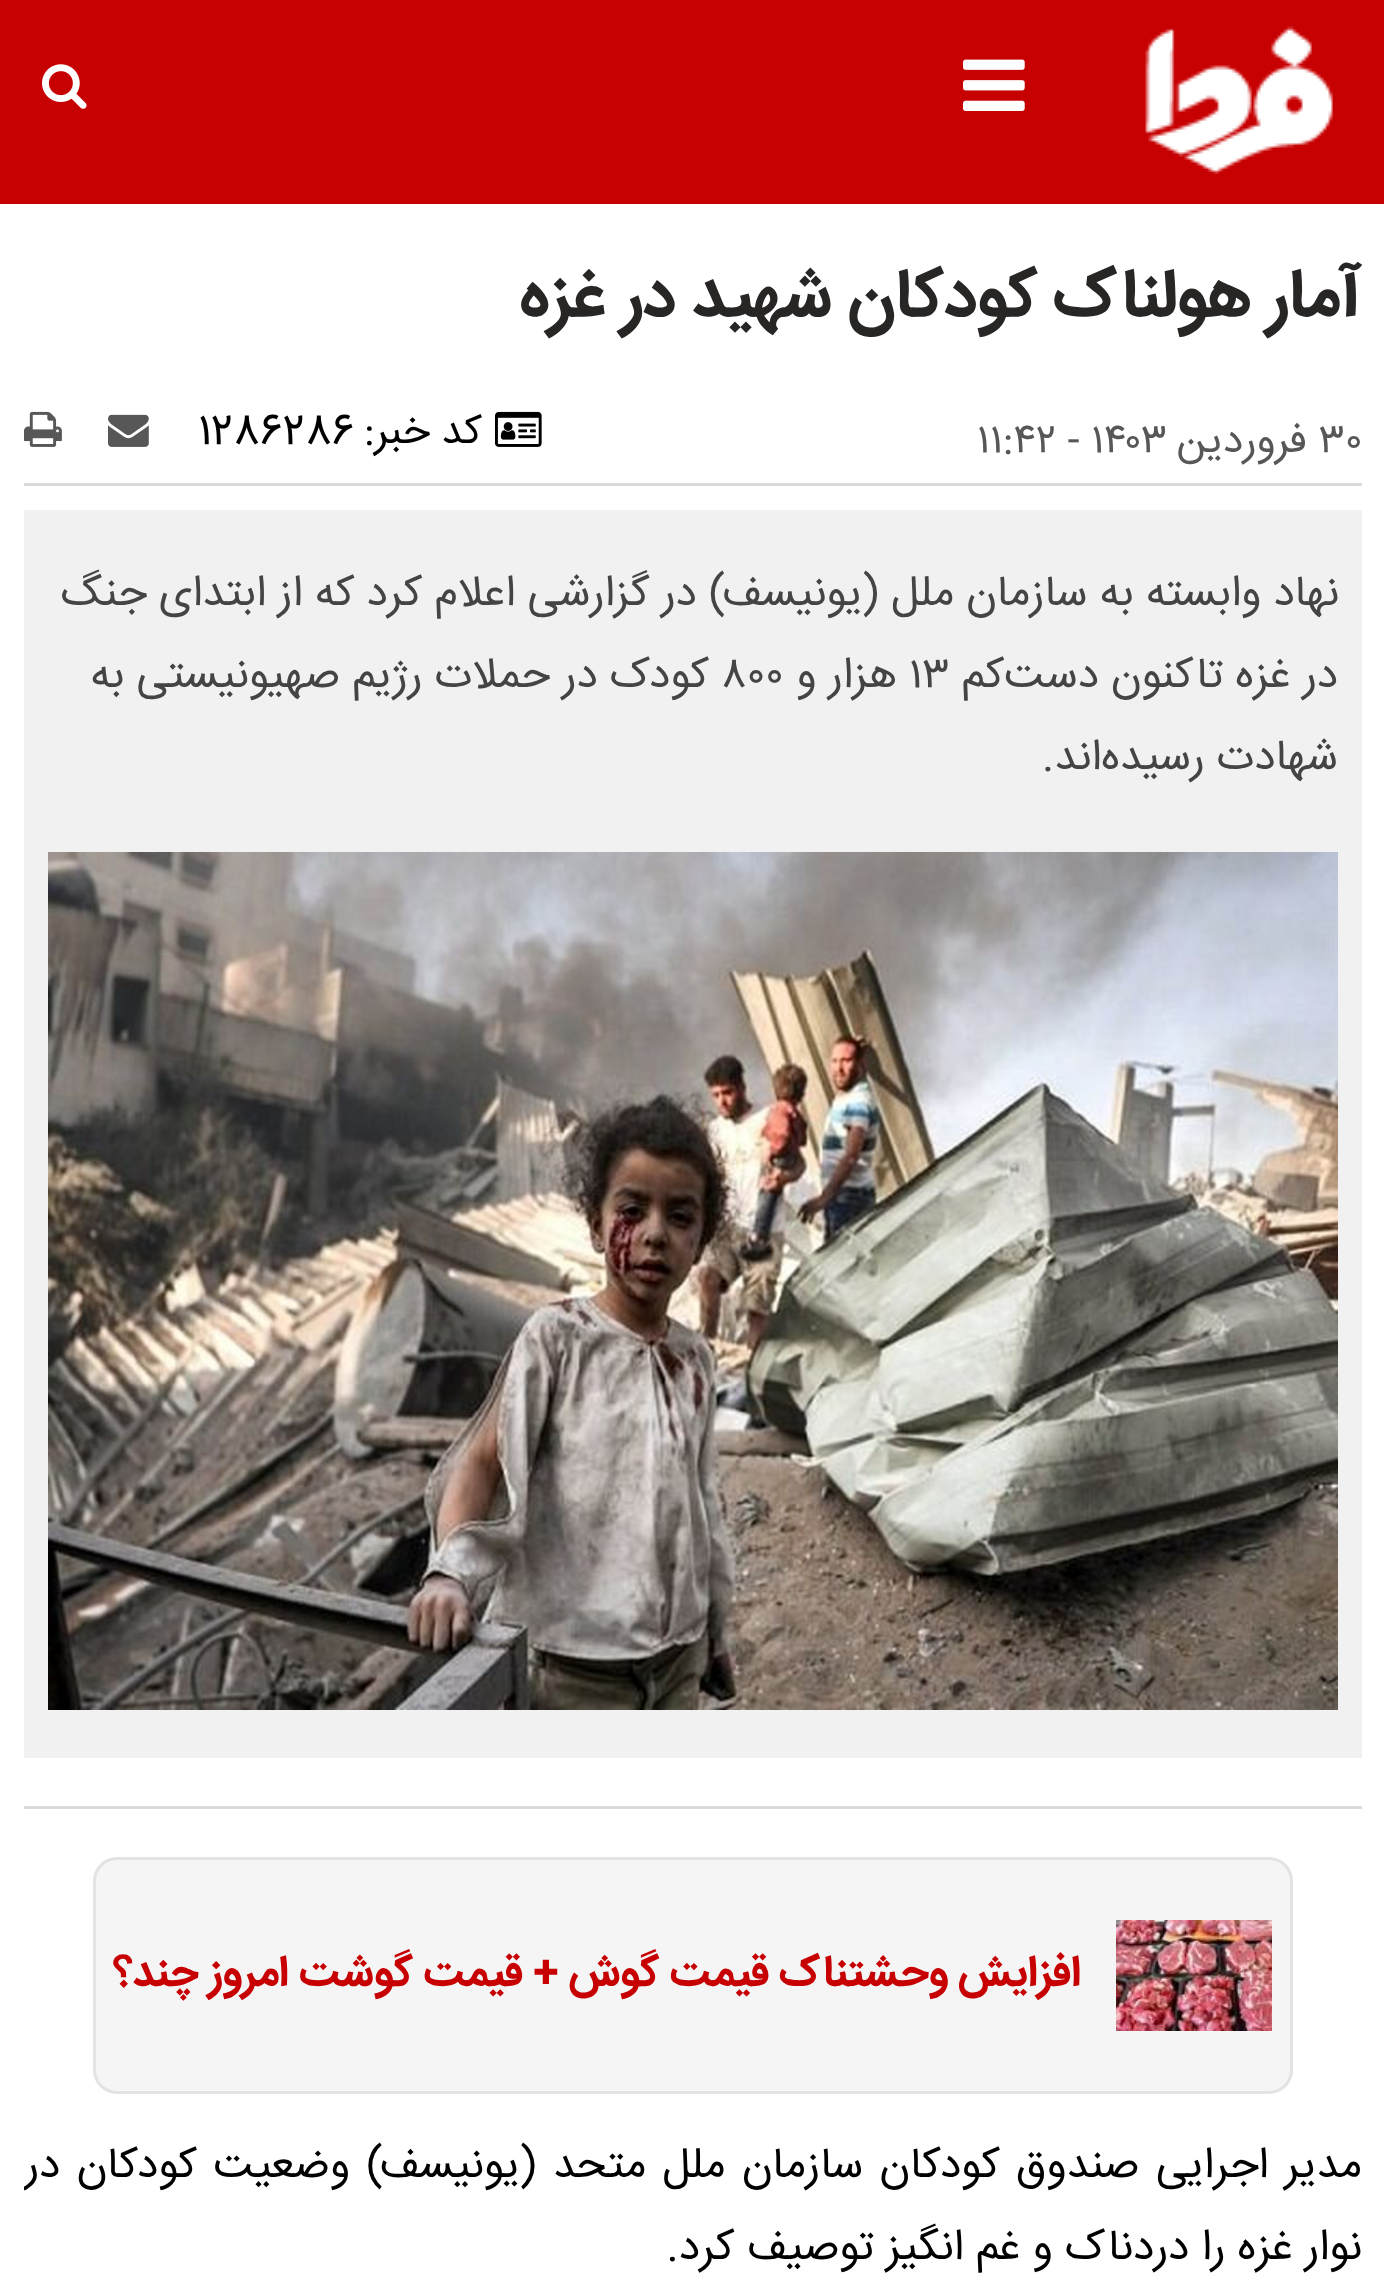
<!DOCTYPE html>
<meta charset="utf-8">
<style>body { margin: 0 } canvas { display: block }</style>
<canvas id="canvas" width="1384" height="2296"></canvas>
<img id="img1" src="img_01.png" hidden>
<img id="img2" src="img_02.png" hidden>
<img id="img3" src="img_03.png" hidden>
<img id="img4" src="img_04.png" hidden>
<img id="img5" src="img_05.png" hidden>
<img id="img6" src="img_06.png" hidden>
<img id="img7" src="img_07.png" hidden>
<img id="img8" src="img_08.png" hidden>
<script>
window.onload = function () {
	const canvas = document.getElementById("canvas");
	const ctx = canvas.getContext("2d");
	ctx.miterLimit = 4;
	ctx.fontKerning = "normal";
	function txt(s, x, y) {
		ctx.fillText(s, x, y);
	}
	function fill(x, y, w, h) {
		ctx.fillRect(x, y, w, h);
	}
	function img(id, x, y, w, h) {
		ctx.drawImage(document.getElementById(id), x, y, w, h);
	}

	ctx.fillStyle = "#FFFFFF";
	fill(0, 0, 1384, 2296);
	ctx.fillStyle = "#C70102";
	fill(0, 0, 1384, 204);
	img("img1", 1145, 26, 188, 148);
	img("img2", 963, 59, 62, 52);
	img("img3", 42, 64, 45, 45);
	ctx.fillStyle = "#DADADA";
	fill(24, 483, 1338, 3);
	img("img4", 495, 411, 47, 36);
	img("img5", 108, 414, 41, 33);
	img("img6", 24, 411, 38, 36);
	fill(24, 1806, 1338, 3);
	ctx.fillStyle = "#F1F1F1";
	fill(24, 510, 1338, 1248);
	img("img7", 48, 852, 1290, 858);
	ctx.fillStyle = "#F5F5F5";
	ctx.beginPath();
	ctx.roundRect(94.5, 1858.5, 1197, 234, 22.5);
	ctx.fill();
	ctx.strokeStyle = "#E3E3E3";
	ctx.lineWidth = 3;
	ctx.stroke();
	img("img8", 1116, 1920, 156, 111);
	ctx.direction = "rtl";
	ctx.font = "bold 67.25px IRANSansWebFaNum";
	ctx.fillStyle = "#282525";
	txt("آمار هولناک کودکان شهید در غزه", 1362, 315);
	ctx.direction = "ltr";
	ctx.font = "41px IRANSansWebFaNum";
	ctx.fillStyle = "#575757";
	txt("۳۰", 1319, 452);
	ctx.direction = "rtl";
	txt("فروردین", 1307, 452);
	ctx.direction = "ltr";
	txt("۱۱:۴۲ - ۱۴۰۳", 977, 452);
	ctx.direction = "rtl";
	ctx.fillStyle = "#000000";
	txt("کد خبر:", 482, 443);
	ctx.direction = "ltr";
	txt("1286286", 198, 443);
	ctx.direction = "rtl";
	ctx.font = "43.2px IRANSansWebFaNum";
	ctx.fillStyle = "#444444";
	txt("نهاد وابسته به سازمان ملل (یونیسف) در گزارشی اعلام کرد که از ابتدای جنگ", 1339, 605);
	txt("در غزه تاکنون دست‌کم", 1338, 687);
	ctx.direction = "ltr";
	txt("۱۳", 909, 687);
	ctx.direction = "rtl";
	txt("هزار و", 897, 687);
	ctx.direction = "ltr";
	txt("۸۰۰", 721, 687);
	ctx.direction = "rtl";
	txt("کودک در حملات رژیم صهیونیستی به", 709, 687);
	txt("شهادت رسیده‌اند.", 1338, 769);
	ctx.font = "bold 43.2px IRANSansWebFaNum";
	ctx.fillStyle = "#C70102";
	txt("افزایش وحشتناک قیمت گوش + قیمت گوشت امروز چند؟", 1081, 1985);
	ctx.save();
	ctx.beginPath();
	ctx.rect(24, 2130, 1338, 162);
	ctx.clip();
	ctx.wordSpacing = "4.25px";
	ctx.font = "43.2px IRANSansWebFaNum";
	ctx.fillStyle = "#000000";
	txt("مدیر اجرایی صندوق کودکان سازمان ملل متحد (یونیسف) وضعیت کودکان در", 1362, 2177);
	ctx.restore();
	ctx.font = "43.2px IRANSansWebFaNum";
	ctx.fillStyle = "#000000";
	txt("نوار غزه را دردناک و غم انگیز توصیف کرد.", 1362, 2259);
};
</script>
